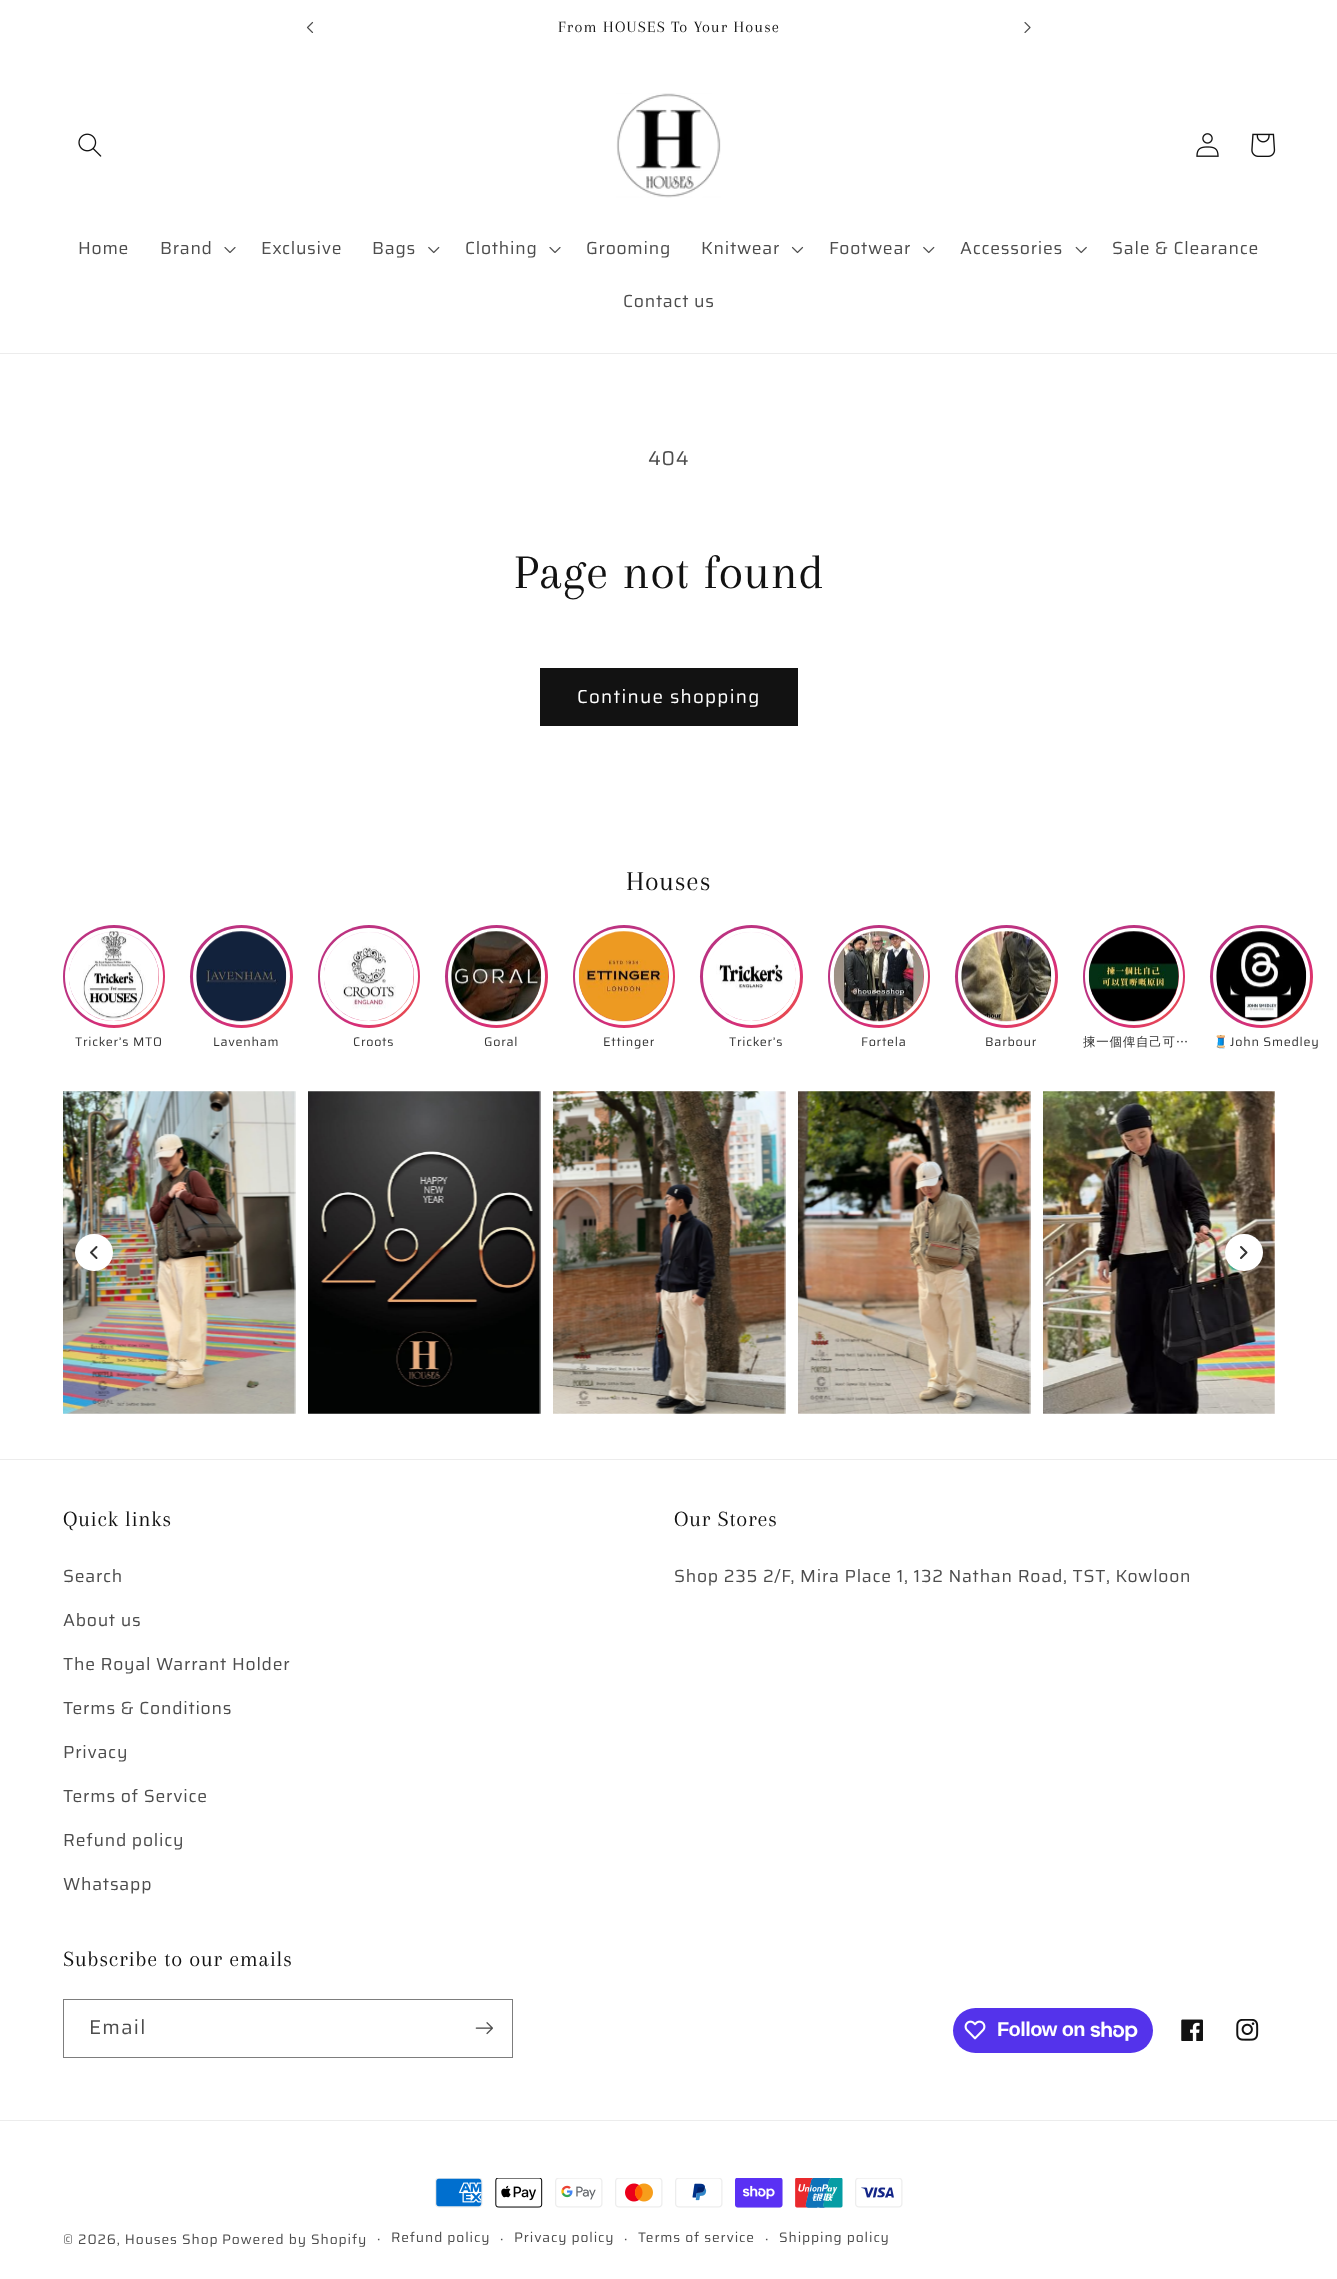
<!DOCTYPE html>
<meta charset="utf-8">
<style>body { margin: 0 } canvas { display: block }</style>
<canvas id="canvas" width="1337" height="2279"></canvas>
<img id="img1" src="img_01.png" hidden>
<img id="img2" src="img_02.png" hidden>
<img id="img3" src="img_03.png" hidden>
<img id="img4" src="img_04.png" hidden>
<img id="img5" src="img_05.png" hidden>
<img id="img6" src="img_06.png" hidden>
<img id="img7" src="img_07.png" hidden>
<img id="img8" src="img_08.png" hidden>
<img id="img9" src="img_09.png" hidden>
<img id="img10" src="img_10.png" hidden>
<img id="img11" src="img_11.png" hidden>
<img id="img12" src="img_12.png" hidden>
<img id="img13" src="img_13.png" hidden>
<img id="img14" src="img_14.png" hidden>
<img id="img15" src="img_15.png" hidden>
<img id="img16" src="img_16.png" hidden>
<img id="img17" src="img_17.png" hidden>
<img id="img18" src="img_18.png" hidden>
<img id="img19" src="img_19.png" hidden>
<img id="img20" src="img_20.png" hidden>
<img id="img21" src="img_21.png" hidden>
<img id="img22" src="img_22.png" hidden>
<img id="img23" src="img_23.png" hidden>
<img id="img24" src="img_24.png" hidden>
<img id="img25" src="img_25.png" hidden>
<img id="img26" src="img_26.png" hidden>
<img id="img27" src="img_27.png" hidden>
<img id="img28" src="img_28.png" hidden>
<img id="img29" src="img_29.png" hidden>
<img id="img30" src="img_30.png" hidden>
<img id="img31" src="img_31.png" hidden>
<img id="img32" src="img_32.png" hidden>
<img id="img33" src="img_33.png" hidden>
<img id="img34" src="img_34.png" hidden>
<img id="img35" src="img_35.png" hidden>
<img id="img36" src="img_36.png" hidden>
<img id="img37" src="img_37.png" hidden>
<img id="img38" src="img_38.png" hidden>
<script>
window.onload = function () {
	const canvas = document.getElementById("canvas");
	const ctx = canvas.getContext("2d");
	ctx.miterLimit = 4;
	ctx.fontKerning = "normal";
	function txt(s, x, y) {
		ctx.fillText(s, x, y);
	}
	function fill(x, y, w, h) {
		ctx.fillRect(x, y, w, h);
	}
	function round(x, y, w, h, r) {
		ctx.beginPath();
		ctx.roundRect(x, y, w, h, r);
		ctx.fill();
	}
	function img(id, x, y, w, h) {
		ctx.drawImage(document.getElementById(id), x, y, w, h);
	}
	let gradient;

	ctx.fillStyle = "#FFFFFF";
	fill(0, 0, 1337, 2279);
	img("img1", 306, 21, 8, 12);
	img("img2", 1024, 22, 7, 11);
	ctx.fillStyle = "#ECECEC";
	fill(0, 353, 1337, 1);
	img("img3", 78, 133, 24, 24);
	img("img4", 616, 93, 105, 105);
	img("img5", 1196, 133, 23, 24);
	img("img6", 1251, 133, 25, 24);
	img("img7", 224, 247, 12, 6);
	img("img8", 428, 246, 12, 8);
	img("img7", 549, 247, 12, 6);
	img("img9", 791, 246, 13, 8);
	img("img8", 923, 246, 12, 8);
	img("img10", 1075, 246, 12, 8);
	ctx.fillStyle = "#121212";
	fill(540, 668, 258, 58);
	gradient = ctx.createRadialGradient(134, 997, 0, 134, 997, 101);
	gradient.addColorStop(0.08, "#EE583F");
	gradient.addColorStop(0.42, "#D92D77");
	gradient.addColorStop(0.58, "#BD3381");
	ctx.fillStyle = gradient;
	round(63, 925, 102, 103, 51);
	ctx.beginPath();
	ctx.roundRect(67, 930, 94, 93, 46.5);
	ctx.strokeStyle = "#FFFFFF";
	ctx.lineWidth = 4;
	ctx.stroke();
	img("img11", 69, 931, 90, 90);
	gradient = ctx.createRadialGradient(262, 997, 0, 262, 997, 101);
	gradient.addColorStop(0.08, "#EE583F");
	gradient.addColorStop(0.42, "#D92D77");
	gradient.addColorStop(0.58, "#BD3381");
	ctx.fillStyle = gradient;
	ctx.beginPath();
	ctx.arc(241.5, 976.5, 51.5, 0, Math.PI * 2);
	ctx.fill();
	ctx.beginPath();
	ctx.arc(241.5, 976.5, 46.5, 0, Math.PI * 2);
	ctx.stroke();
	img("img12", 196, 931, 91, 91);
	gradient = ctx.createRadialGradient(389, 997, 0, 389, 997, 101);
	gradient.addColorStop(0.08, "#EE583F");
	gradient.addColorStop(0.42, "#D92D77");
	gradient.addColorStop(0.58, "#BD3381");
	ctx.fillStyle = gradient;
	round(318, 925, 102, 103, 51);
	ctx.beginPath();
	ctx.roundRect(322, 930, 94, 93, 46.5);
	ctx.stroke();
	img("img13", 324, 932, 90, 89);
	gradient = ctx.createRadialGradient(517, 997, 0, 517, 997, 101);
	gradient.addColorStop(0.08, "#EE583F");
	gradient.addColorStop(0.42, "#D92D77");
	gradient.addColorStop(0.58, "#BD3381");
	ctx.fillStyle = gradient;
	ctx.beginPath();
	ctx.arc(496.5, 976.5, 51.5, 0, Math.PI * 2);
	ctx.fill();
	ctx.beginPath();
	ctx.arc(496.5, 976.5, 46.5, 0, Math.PI * 2);
	ctx.stroke();
	img("img14", 451, 931, 91, 91);
	gradient = ctx.createRadialGradient(644, 997, 0, 644, 997, 101);
	gradient.addColorStop(0.08, "#EE583F");
	gradient.addColorStop(0.42, "#D92D77");
	gradient.addColorStop(0.58, "#BD3381");
	ctx.fillStyle = gradient;
	round(573, 925, 102, 103, 51);
	ctx.beginPath();
	ctx.roundRect(577, 930, 94, 93, 46.5);
	ctx.stroke();
	img("img15", 578, 931, 91, 91);
	gradient = ctx.createRadialGradient(772, 997, 0, 772, 997, 101);
	gradient.addColorStop(0.08, "#EE583F");
	gradient.addColorStop(0.42, "#D92D77");
	gradient.addColorStop(0.58, "#BD3381");
	ctx.fillStyle = gradient;
	ctx.beginPath();
	ctx.arc(751.5, 976.5, 51.5, 0, Math.PI * 2);
	ctx.fill();
	ctx.beginPath();
	ctx.arc(751.5, 976.5, 46.5, 0, Math.PI * 2);
	ctx.stroke();
	img("img16", 707, 932, 89, 89);
	gradient = ctx.createRadialGradient(899, 997, 0, 899, 997, 101);
	gradient.addColorStop(0.08, "#EE583F");
	gradient.addColorStop(0.42, "#D92D77");
	gradient.addColorStop(0.58, "#BD3381");
	ctx.fillStyle = gradient;
	round(828, 925, 102, 103, 51);
	ctx.beginPath();
	ctx.roundRect(832, 930, 94, 93, 46.5);
	ctx.stroke();
	img("img17", 833, 931, 91, 91);
	gradient = ctx.createRadialGradient(1027, 997, 0, 1027, 997, 101);
	gradient.addColorStop(0.08, "#EE583F");
	gradient.addColorStop(0.42, "#D92D77");
	gradient.addColorStop(0.58, "#BD3381");
	ctx.fillStyle = gradient;
	ctx.beginPath();
	ctx.arc(1006.5, 976.5, 51.5, 0, Math.PI * 2);
	ctx.fill();
	ctx.beginPath();
	ctx.arc(1006.5, 976.5, 46.5, 0, Math.PI * 2);
	ctx.stroke();
	img("img18", 961, 931, 91, 91);
	gradient = ctx.createRadialGradient(1154, 997, 0, 1154, 997, 101);
	gradient.addColorStop(0.08, "#EE583F");
	gradient.addColorStop(0.42, "#D92D77");
	gradient.addColorStop(0.58, "#BD3381");
	ctx.fillStyle = gradient;
	round(1083, 925, 102, 103, 51);
	ctx.beginPath();
	ctx.roundRect(1087, 930, 94, 93, 46.5);
	ctx.stroke();
	img("img19", 1088, 931, 91, 91);
	gradient = ctx.createRadialGradient(1282, 997, 0, 1282, 997, 101);
	gradient.addColorStop(0.08, "#EE583F");
	gradient.addColorStop(0.42, "#D92D77");
	gradient.addColorStop(0.58, "#BD3381");
	ctx.fillStyle = gradient;
	ctx.beginPath();
	ctx.arc(1261.5, 976.5, 51.5, 0, Math.PI * 2);
	ctx.fill();
	ctx.beginPath();
	ctx.arc(1261.5, 976.5, 46.5, 0, Math.PI * 2);
	ctx.stroke();
	img("img20", 1216, 931, 91, 91);
	img("img21", 63, 1091, 233, 323);
	img("img22", 308, 1091, 233, 323);
	img("img23", 553, 1091, 233, 323);
	img("img24", 798, 1091, 233, 323);
	img("img25", 1043, 1091, 232, 323);
	ctx.fillStyle = "#FFFFFF";
	round(75, 1234, 38, 37, 18.5);
	ctx.beginPath();
	ctx.moveTo(96.5, 1258);
	ctx.lineTo(91, 1252.5);
	ctx.lineTo(96.5, 1247);
	ctx.strokeStyle = "#333333";
	ctx.lineWidth = 2;
	ctx.lineCap = "round";
	ctx.lineJoin = "round";
	ctx.stroke();
	round(1225, 1234, 38, 37, 18.5);
	ctx.beginPath();
	ctx.moveTo(1241, 1247);
	ctx.lineTo(1246.5, 1252.5);
	ctx.lineTo(1241, 1258);
	ctx.stroke();
	ctx.fillStyle = "#ECECEC";
	fill(0, 1459, 1337, 1);
	ctx.strokeStyle = "#7D7D7D";
	ctx.lineWidth = 1;
	ctx.lineJoin = "miter";
	ctx.strokeRect(63.5, 1999.5, 449, 58);
	img("img26", 475, 2022, 18, 13);
	ctx.fillStyle = "#5433EB";
	round(953, 2008, 200, 45, 22.5);
	img("img27", 964, 2020, 22, 20);
	img("img28", 1090, 2021, 48, 20);
	img("img29", 1181, 2019, 22, 22);
	img("img30", 1236, 2019, 23, 22);
	ctx.fillStyle = "#ECECEC";
	fill(0, 2120, 1337, 1);
	img("img31", 435, 2178, 48, 30);
	img("img32", 495, 2178, 48, 30);
	img("img33", 555, 2178, 48, 30);
	img("img34", 615, 2178, 48, 30);
	img("img35", 675, 2178, 48, 30);
	img("img36", 735, 2178, 48, 30);
	img("img37", 795, 2178, 48, 30);
	img("img38", 855, 2178, 48, 30);
	ctx.letterSpacing = "1.25px";
	ctx.font = "16.25px Arapey";
	ctx.fillStyle = "#121212";
	txt("From HOUSES To Your House", 558, 32);
	ctx.letterSpacing = "0.75px";
	ctx.font = "17.5px Saira";
	ctx.fillStyle = "#4D4D4D";
	txt("Home", 78, 254);
	txt("Brand", 160, 254);
	txt("Exclusive", 261, 254);
	txt("Bags", 372, 254);
	txt("Clothing", 465, 254);
	txt("Grooming", 586, 254);
	txt("Knitwear", 701, 254);
	txt("Footwear", 829, 254);
	txt("Accessories", 960, 254);
	txt("Sale & Clearance", 1112, 254);
	txt("Contact us", 623, 307);
	ctx.font = "20px Saira";
	txt("404", 648, 465);
	ctx.font = "50px Arapey";
	ctx.fillStyle = "#121212";
	txt("Page not found", 514, 588);
	ctx.letterSpacing = "1.25px";
	ctx.font = "18.75px Saira";
	ctx.fillStyle = "#FFFFFF";
	txt("Continue shopping", 577, 703);
	ctx.letterSpacing = "0.75px";
	ctx.font = "28px Arapey";
	ctx.fillStyle = "#121212";
	txt("Houses", 626, 890);
	ctx.font = "12.5px Saira";
	ctx.fillStyle = "#333333";
	txt("Tricker’s MTO", 75, 1046);
	txt("Lavenham", 213, 1046);
	txt("Croots", 353, 1046);
	txt("Goral", 484, 1046);
	txt("Ettinger", 603, 1046);
	txt("Tricker’s", 729, 1046);
	txt("Fortela", 861, 1046);
	txt("Barbour", 985, 1046);
	ctx.save();
	ctx.beginPath();
	ctx.rect(1083, 1028, 112, 26);
	ctx.clip();
	ctx.font = "500 12.5px WenQuanYi Zen Hei";
	txt("揀一個俾自己可…", 1083, 1046);
	ctx.restore();
	ctx.font = "12.5px Noto Color Emoji";
	txt("🧵", 1213, 1046);
	ctx.font = "12.5px Saira";
	txt("John Smedley", 1230, 1046);
	ctx.font = "22.5px Arapey";
	ctx.fillStyle = "#121212";
	txt("Quick links", 63, 1526);
	ctx.font = "17.5px Saira";
	ctx.fillStyle = "#4D4D4D";
	txt("Search", 63, 1582);
	txt("About us", 63, 1626);
	txt("The Royal Warrant Holder", 63, 1670);
	txt("Terms & Conditions", 63, 1714);
	txt("Privacy", 63, 1758);
	txt("Terms of Service", 63, 1802);
	txt("Refund policy", 63, 1846);
	txt("Whatsapp", 63, 1890);
	ctx.font = "22.5px Arapey";
	ctx.fillStyle = "#121212";
	txt("Our Stores", 674, 1526);
	ctx.font = "17.5px Saira";
	ctx.fillStyle = "#4D4D4D";
	txt("Shop 235 2/F, Mira Place 1, 132 Nathan Road, TST, Kowloon", 674, 1582);
	ctx.font = "22.5px Arapey";
	ctx.fillStyle = "#121212";
	txt("Subscribe to our emails", 63, 1966);
	ctx.letterSpacing = "1.25px";
	ctx.font = "20px Saira";
	ctx.fillStyle = "#4D4D4D";
	txt("Email", 89, 2034);
	ctx.letterSpacing = "-0.6px";
	ctx.font = "bold 20px Liberation Sans";
	ctx.fillStyle = "#FFFFFF";
	txt("Follow on", 997, 2036);
	ctx.letterSpacing = "0.9px";
	ctx.font = "13.75px Saira";
	ctx.fillStyle = "#4D4D4D";
	txt("© 2026, Houses Shop", 63, 2244);
	txt("Powered by Shopify", 222, 2244);
	ctx.font = "15px Saira";
	txt("·", 377, 2244);
	ctx.font = "13.75px Saira";
	txt("Refund policy", 391, 2242);
	ctx.font = "15px Saira";
	txt("·", 500, 2244);
	ctx.font = "13.75px Saira";
	txt("Privacy policy", 514, 2242);
	ctx.font = "15px Saira";
	txt("·", 624, 2244);
	ctx.font = "13.75px Saira";
	txt("Terms of service", 638, 2242);
	ctx.font = "15px Saira";
	txt("·", 765, 2244);
	ctx.font = "13.75px Saira";
	txt("Shipping policy", 779, 2242);
};
</script>
